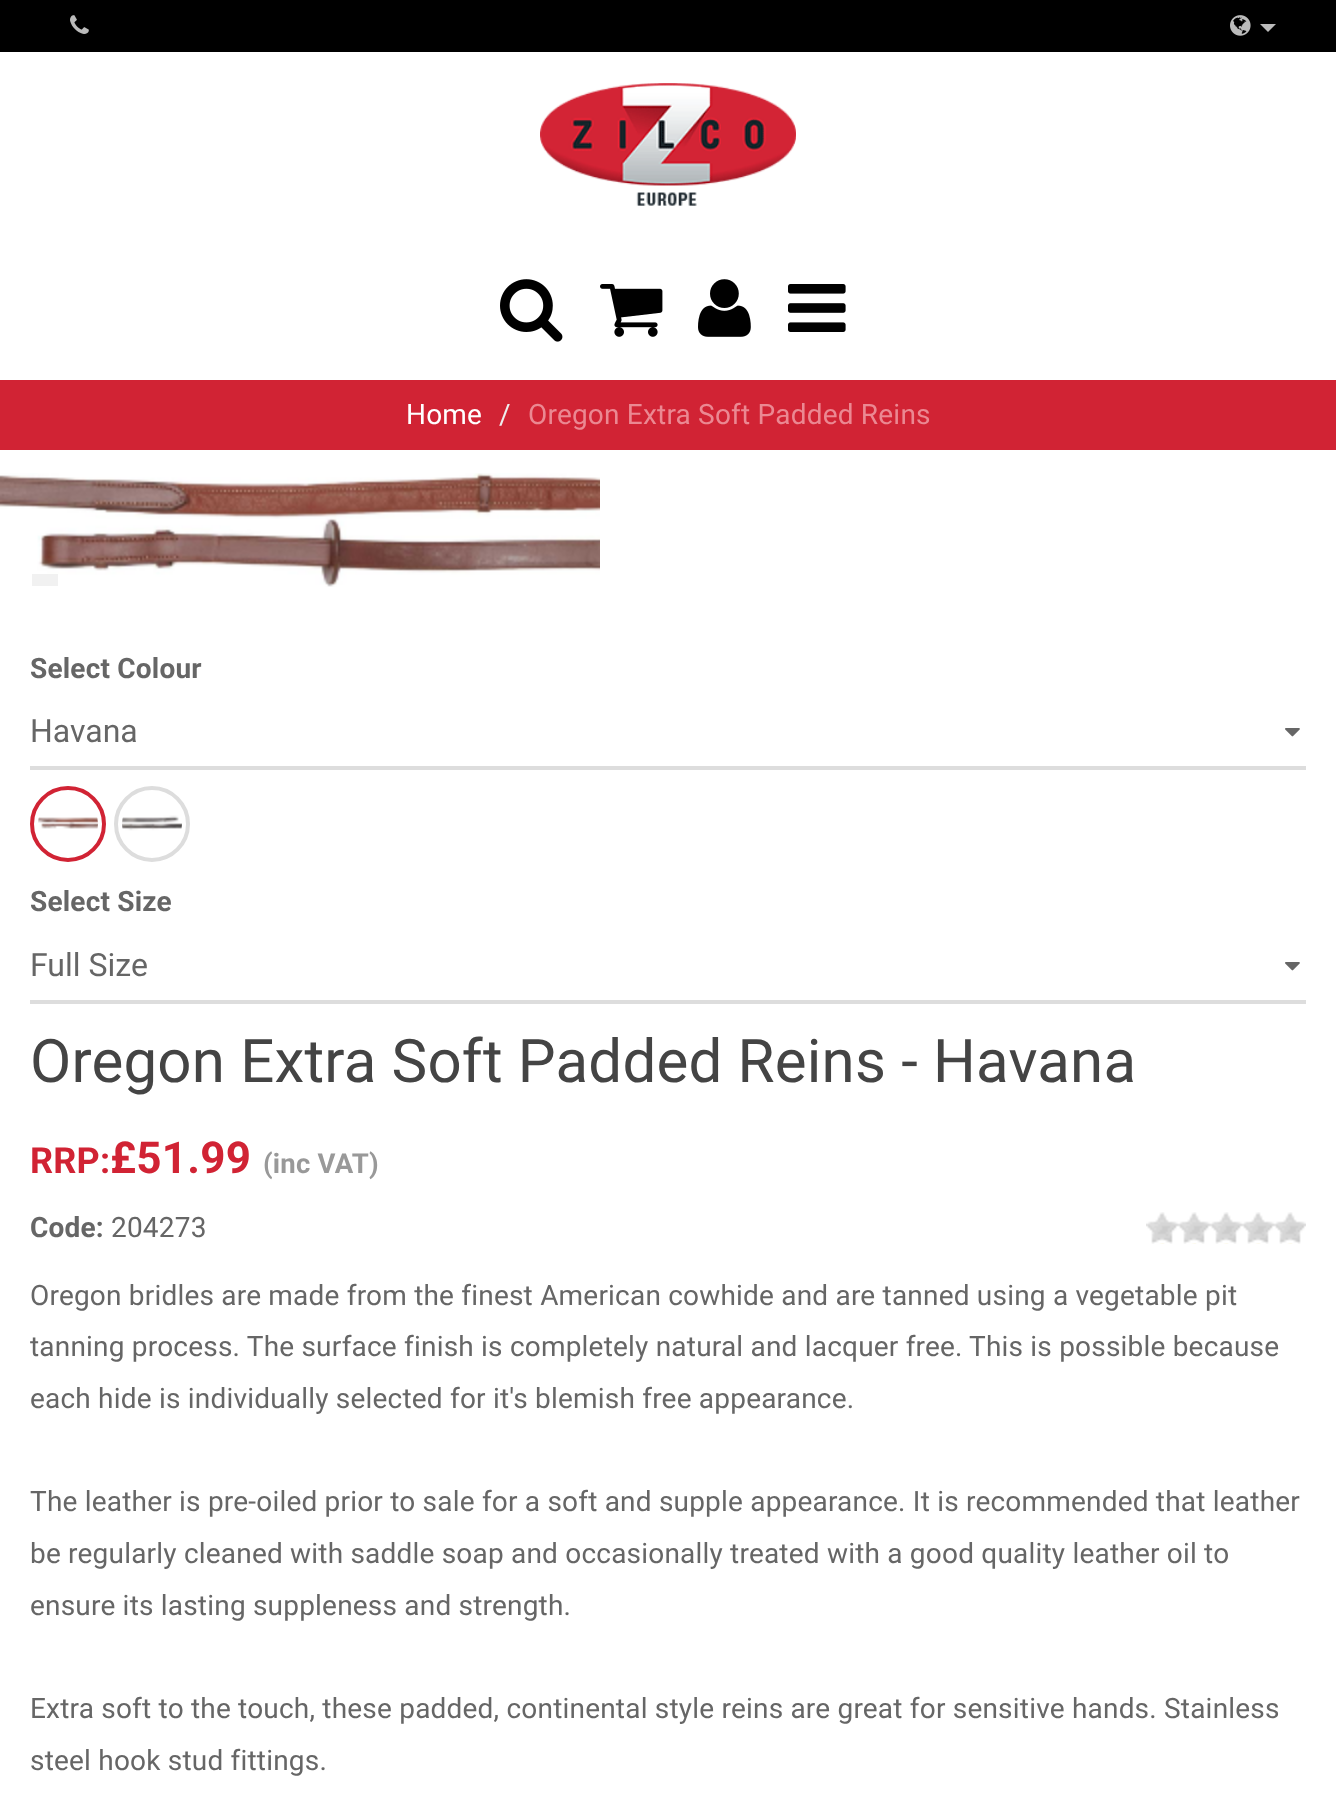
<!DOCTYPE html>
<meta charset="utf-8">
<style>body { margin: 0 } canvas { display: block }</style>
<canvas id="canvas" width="1336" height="1818"></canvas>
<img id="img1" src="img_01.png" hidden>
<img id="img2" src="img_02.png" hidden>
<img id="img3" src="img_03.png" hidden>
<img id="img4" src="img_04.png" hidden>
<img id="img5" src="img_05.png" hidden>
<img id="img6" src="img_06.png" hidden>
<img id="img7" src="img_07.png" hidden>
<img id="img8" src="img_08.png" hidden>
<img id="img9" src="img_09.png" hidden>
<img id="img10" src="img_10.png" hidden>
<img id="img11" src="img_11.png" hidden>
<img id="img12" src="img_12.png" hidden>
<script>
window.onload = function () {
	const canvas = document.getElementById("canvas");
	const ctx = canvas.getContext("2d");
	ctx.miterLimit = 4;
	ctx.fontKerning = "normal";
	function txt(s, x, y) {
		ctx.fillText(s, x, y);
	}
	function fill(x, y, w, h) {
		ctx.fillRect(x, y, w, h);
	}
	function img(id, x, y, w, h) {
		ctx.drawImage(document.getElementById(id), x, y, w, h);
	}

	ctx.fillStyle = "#FFFFFF";
	fill(0, 0, 1336, 1818);
	ctx.fillStyle = "#000000";
	fill(0, 0, 1336, 52);
	img("img1", 70, 15, 19, 19);
	img("img2", 1230, 15, 21, 21);
	ctx.fillStyle = "#BBBBBB";
	ctx.beginPath();
	ctx.moveTo(1260, 24);
	ctx.lineTo(1276, 24);
	ctx.lineTo(1268, 32);
	ctx.closePath();
	ctx.fill();
	img("img3", 540, 83, 256, 123);
	img("img4", 500, 279, 63, 63);
	img("img5", 600, 284, 63, 53);
	img("img6", 698, 279, 53, 58);
	img("img7", 788, 284, 58, 48);
	ctx.fillStyle = "#D12334";
	fill(0, 380, 1336, 70);
	img("img8", 0, 473, 600, 114);
	ctx.fillStyle = "#F1F1F1";
	fill(32, 574, 26, 12);
	img("img9", 1285, 728, 15, 9);
	ctx.fillStyle = "#DDDDDD";
	fill(30, 766, 1276, 4);
	ctx.beginPath();
	ctx.arc(68, 824, 36, 0, Math.PI * 2);
	ctx.strokeStyle = "#D12334";
	ctx.lineWidth = 4;
	ctx.stroke();
	ctx.beginPath();
	ctx.arc(152, 824, 36, 0, Math.PI * 2);
	ctx.strokeStyle = "#DDDDDD";
	ctx.stroke();
	img("img10", 38, 817, 60, 12);
	img("img11", 122, 815, 60, 16);
	img("img9", 1285, 962, 15, 9);
	fill(30, 1000, 1276, 4);
	img("img12", 1146, 1212, 160, 32);
	ctx.letterSpacing = "0.2px";
	ctx.font = "28px Roboto";
	ctx.fillStyle = "#FFFFFF";
	txt("Home", 406, 424);
	ctx.fillStyle = "#EEEEEE";
	txt("/", 499, 424);
	ctx.fillStyle = "#EB8892";
	txt("Oregon Extra Soft Padded Reins", 528, 424);
	ctx.font = "bold 28px Roboto";
	ctx.fillStyle = "#666666";
	txt("Select Colour", 30, 678);
	ctx.letterSpacing = "0px";
	ctx.font = "32px Roboto";
	txt("Havana", 30, 742);
	ctx.letterSpacing = "0.2px";
	ctx.font = "bold 28px Roboto";
	txt("Select Size", 30, 911);
	ctx.letterSpacing = "0px";
	ctx.font = "32px Roboto";
	txt("Full Size", 30, 976);
	ctx.letterSpacing = "0.2px";
	ctx.font = "60px Roboto";
	ctx.fillStyle = "#444444";
	txt("Oregon Extra Soft Padded Reins - Havana", 30, 1082);
	ctx.font = "bold 36px Roboto";
	ctx.fillStyle = "#D12334";
	txt("RRP:", 30, 1173);
	ctx.font = "bold 44px Roboto";
	txt("£51.99", 110, 1173);
	ctx.font = "bold 27.5px Roboto";
	ctx.fillStyle = "#999999";
	txt("(inc VAT)", 263, 1173);
	ctx.font = "bold 28px Roboto";
	ctx.fillStyle = "#666666";
	txt("Code:", 30, 1237);
	ctx.font = "28px Roboto";
	txt("204273", 111, 1237);
	txt("Oregon bridles are made from the finest American cowhide and are tanned using a vegetable pit", 30, 1305);
	txt("tanning process. The surface finish is completely natural and lacquer free.", 30, 1356);
	txt("This is possible because", 969, 1356);
	txt("each hide is individually selected for it's blemish free appearance.", 30, 1408);
	txt("The leather is pre-oiled prior to sale for a soft and supple appearance. It is recommended that leather", 30, 1511);
	txt("be regularly cleaned with saddle soap and occasionally treated with a good quality leather oil to", 30, 1563);
	txt("ensure its lasting suppleness and strength.", 30, 1615);
	txt("Extra soft to the touch, these padded, continental style reins are great for sensitive hands. Stainless", 30, 1718);
	txt("steel hook stud fittings.", 30, 1770);
};
</script>
